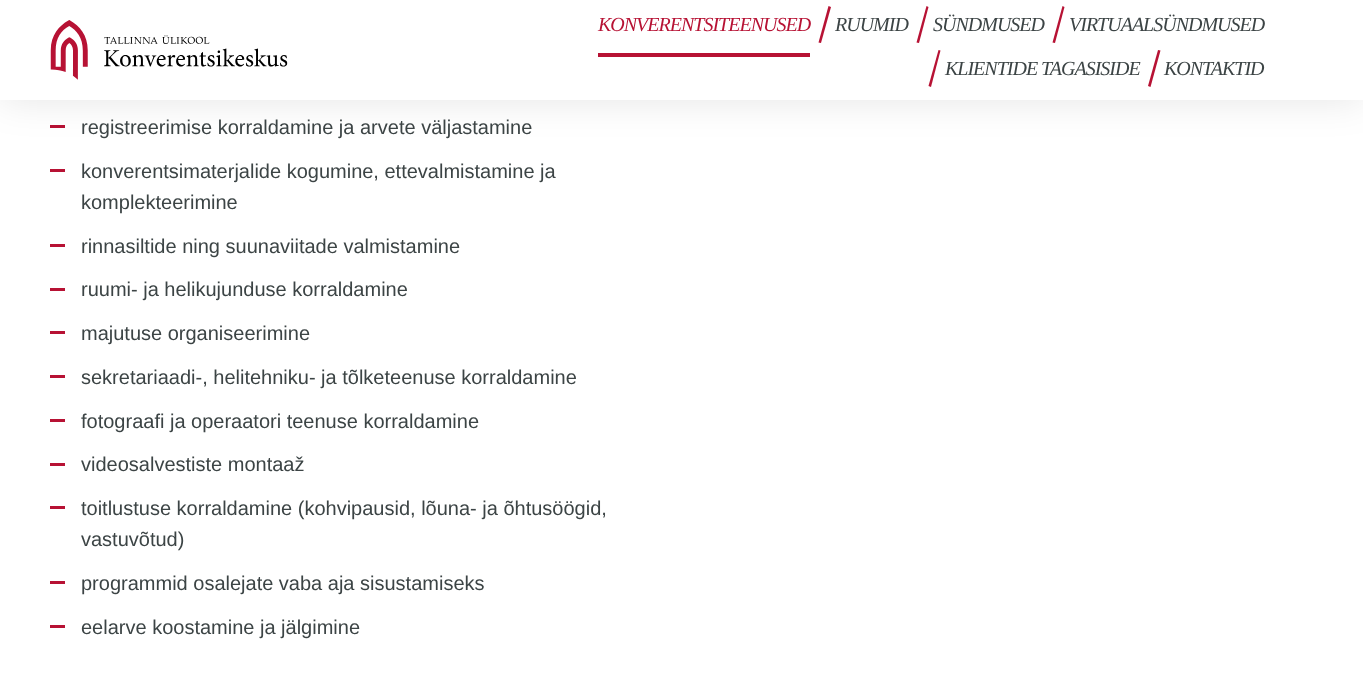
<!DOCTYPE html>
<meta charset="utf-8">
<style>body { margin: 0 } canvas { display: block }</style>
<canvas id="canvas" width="1363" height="682"></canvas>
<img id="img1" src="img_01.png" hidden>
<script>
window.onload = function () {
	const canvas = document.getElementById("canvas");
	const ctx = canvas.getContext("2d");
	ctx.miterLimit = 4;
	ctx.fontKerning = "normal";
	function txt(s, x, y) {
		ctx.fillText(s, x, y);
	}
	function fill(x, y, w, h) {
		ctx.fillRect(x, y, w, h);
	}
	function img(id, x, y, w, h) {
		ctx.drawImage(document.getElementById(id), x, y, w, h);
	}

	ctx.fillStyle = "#FFFFFF";
	fill(0, 0, 1363, 682);
	ctx.fillStyle = "#B71234";
	fill(50, 125, 15, 3);
	ctx.fillStyle = "rgba(0, 0, 0, 0.1)";
	ctx.filter = "blur(19px)";
	ctx.beginPath();
	ctx.rect(0, -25, 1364, 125);
	ctx.fill();
	ctx.filter = "none";
	ctx.fillStyle = "#FFFFFF";
	fill(0, 0, 1363, 100);
	img("img1", 50, 20, 238, 60);
	ctx.fillStyle = "#B71234";
	fill(598, 53, 212, 4);
	ctx.beginPath();
	ctx.moveTo(828.5, 6);
	ctx.lineTo(831, 7);
	ctx.lineTo(821, 43);
	ctx.lineTo(818.5, 42.5);
	ctx.closePath();
	ctx.fill();
	ctx.beginPath();
	ctx.moveTo(926.5, 6);
	ctx.lineTo(928.5, 7);
	ctx.lineTo(919, 43);
	ctx.lineTo(916.5, 42.5);
	ctx.closePath();
	ctx.fill();
	ctx.beginPath();
	ctx.moveTo(1062.5, 6);
	ctx.lineTo(1064.5, 7);
	ctx.lineTo(1055, 43);
	ctx.lineTo(1052.5, 42.5);
	ctx.closePath();
	ctx.fill();
	ctx.beginPath();
	ctx.moveTo(938.5, 50);
	ctx.lineTo(940.5, 50.5);
	ctx.lineTo(931, 87);
	ctx.lineTo(928.5, 86);
	ctx.closePath();
	ctx.fill();
	ctx.beginPath();
	ctx.moveTo(1158, 50);
	ctx.lineTo(1160.5, 50.5);
	ctx.lineTo(1150.5, 87);
	ctx.lineTo(1148, 86);
	ctx.closePath();
	ctx.fill();
	fill(50, 169, 15, 3);
	fill(50, 244, 15, 3);
	fill(50, 288, 15, 3);
	fill(50, 331, 15, 3);
	fill(50, 375, 15, 3);
	fill(50, 419, 15, 3);
	fill(50, 463, 15, 3);
	fill(50, 506, 15, 3);
	fill(50, 581, 15, 3);
	fill(50, 625, 15, 3);
	ctx.letterSpacing = "-1px";
	ctx.font = "italic 20px Liberation Serif";
	txt("KONVERENTSITEENUSED", 598, 31);
	ctx.fillStyle = "#3C4445";
	txt("RUUMID", 835, 31);
	txt("SÜNDMUSED", 933, 31);
	txt("VIRTUAALSÜNDMUSED", 1069, 31);
	txt("KLIENTIDE TAGASISIDE", 945, 75);
	txt("KONTAKTID", 1164, 75);
	ctx.letterSpacing = "0px";
	ctx.font = "20px Liberation Sans";
	txt("registreerimise korraldamine ja arvete väljastamine", 81, 134);
	txt("konverentsimaterjalide kogumine, ettevalmistamine ja", 81, 178);
	txt("komplekteerimine", 81, 209);
	txt("rinnasiltide ning suunaviitade valmistamine", 81, 253);
	txt("ruumi- ja helikujunduse korraldamine", 81, 296);
	txt("majutuse organiseerimine", 81, 340);
	txt("sekretariaadi-, helitehniku- ja tõlketeenuse korraldamine", 81, 384);
	txt("fotograafi ja operaatori teenuse korraldamine", 81, 428);
	txt("videosalvestiste montaaž", 81, 471);
	txt("toitlustuse korraldamine (kohvipausid, lõuna- ja õhtusöögid,", 81, 515);
	txt("vastuvõtud)", 81, 546);
	txt("programmid osalejate vaba aja sisustamiseks", 81, 590);
	txt("eelarve koostamine ja jälgimine", 81, 634);
};
</script>
